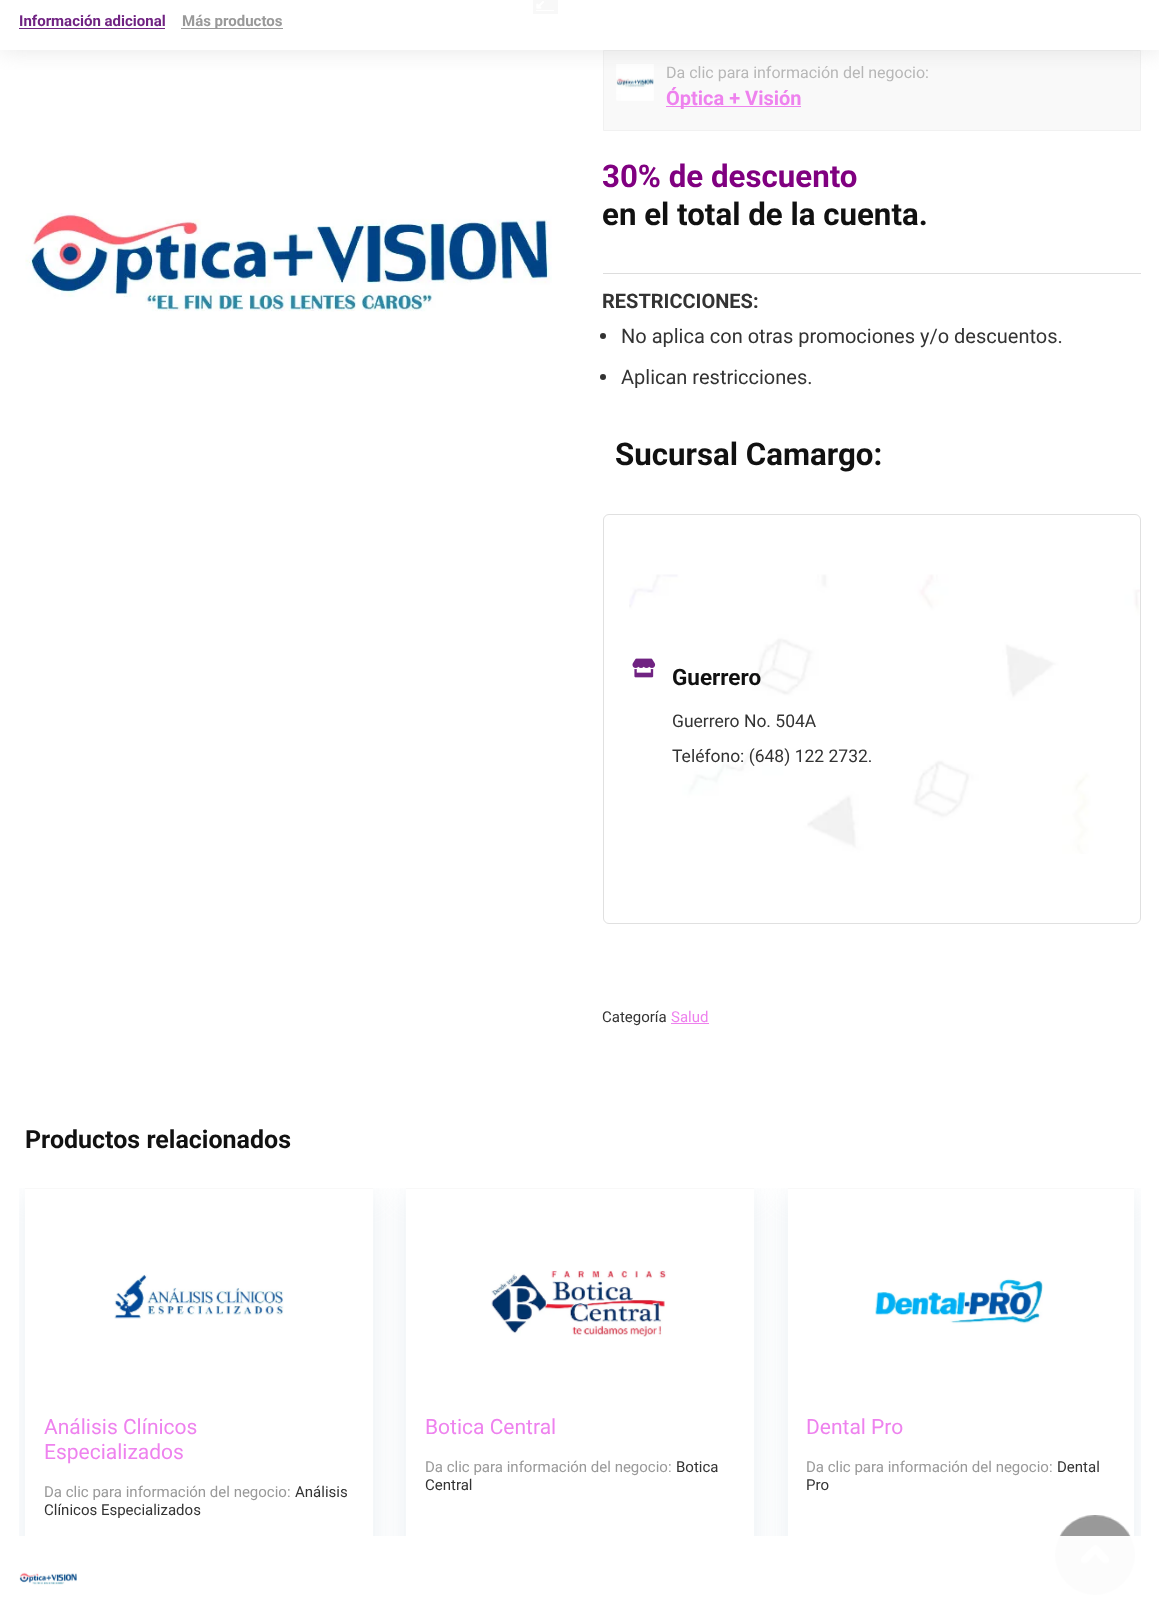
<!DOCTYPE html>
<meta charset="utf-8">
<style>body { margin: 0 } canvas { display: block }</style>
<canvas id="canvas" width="1159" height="1619"></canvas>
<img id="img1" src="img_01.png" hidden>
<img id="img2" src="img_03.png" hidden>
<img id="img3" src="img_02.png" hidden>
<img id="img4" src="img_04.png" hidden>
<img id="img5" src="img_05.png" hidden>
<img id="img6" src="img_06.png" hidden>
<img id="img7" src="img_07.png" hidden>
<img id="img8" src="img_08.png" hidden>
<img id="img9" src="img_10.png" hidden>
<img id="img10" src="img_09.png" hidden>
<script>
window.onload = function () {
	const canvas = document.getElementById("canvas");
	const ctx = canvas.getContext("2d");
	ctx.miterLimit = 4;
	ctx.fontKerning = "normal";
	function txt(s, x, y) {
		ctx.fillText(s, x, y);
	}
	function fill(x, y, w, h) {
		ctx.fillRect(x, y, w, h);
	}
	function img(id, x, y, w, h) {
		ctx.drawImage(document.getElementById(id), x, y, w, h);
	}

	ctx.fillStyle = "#FFFFFF";
	fill(0, 0, 1159, 1619);
	ctx.fillStyle = "#F8F8F8";
	fill(533, 0, 25, 14);
	img("img1", 536, 0, 11, 9);
	ctx.fillStyle = "#FFFFFF";
	fill(536, 10, 18, 1);
	ctx.fillStyle = "#F9F9F9";
	ctx.beginPath();
	ctx.rect(603.5, 50.5, 537, 80);
	ctx.fill();
	ctx.strokeStyle = "#F1F1F1";
	ctx.stroke();
	img("img2", 616, 64, 38, 37);
	ctx.save();
	ctx.beginPath();
	ctx.rect(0, 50, 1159, 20);
	ctx.clip();
	ctx.fillStyle = "rgba(187, 187, 187, 0.36)";
	ctx.filter = "blur(12.5px)";
	ctx.beginPath();
	ctx.rect(0, 0, 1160, 50);
	ctx.fill();
	ctx.filter = "none";
	ctx.restore();
	ctx.fillStyle = "#702382";
	fill(19, 28, 146, 1);
	ctx.fillStyle = "#999999";
	fill(181, 28, 102, 1);
	img("img3", 25, 213, 527, 99);
	ctx.fillStyle = "#EE82EE";
	fill(666, 106, 135, 1);
	ctx.fillStyle = "#DDDDDD";
	fill(603, 273, 538, 1);
	ctx.fillStyle = "#333333";
	ctx.beginPath();
	ctx.arc(603, 336, 3, 0, Math.PI * 2);
	ctx.fill();
	ctx.beginPath();
	ctx.arc(603, 377, 3, 0, Math.PI * 2);
	ctx.fill();
	img("img4", 629, 574, 511, 280);
	ctx.beginPath();
	ctx.roundRect(603.5, 514.5, 537, 409, 5.5);
	ctx.strokeStyle = "#E0E0E0";
	ctx.stroke();
	img("img5", 632, 658, 24, 20);
	ctx.fillStyle = "#EE82EE";
	fill(671, 1023, 38, 1);
	ctx.save();
	ctx.beginPath();
	ctx.rect(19, 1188, 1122, 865);
	ctx.clip();
	ctx.fillStyle = "rgba(188, 207, 219, 0.35)";
	ctx.filter = "blur(14.5px)";
	ctx.beginPath();
	ctx.rect(25, 1194, 348, 414);
	ctx.fill();
	ctx.filter = "none";
	ctx.restore();
	ctx.fillStyle = "#FFFFFF";
	fill(25, 1189, 348, 412);
	ctx.fillStyle = "#F8F8F8";
	fill(25, 1188, 348, 1);
	img("img6", 114, 1274, 170, 45);
	ctx.fillStyle = "#F0F0F0";
	fill(76, 1575, 297, 1);
	ctx.save();
	ctx.beginPath();
	ctx.rect(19, 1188, 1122, 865);
	ctx.clip();
	ctx.fillStyle = "rgba(188, 207, 219, 0.35)";
	ctx.filter = "blur(14.5px)";
	ctx.beginPath();
	ctx.rect(406, 1194, 348, 414);
	ctx.fill();
	ctx.filter = "none";
	ctx.restore();
	ctx.fillStyle = "#FFFFFF";
	fill(406, 1189, 348, 412);
	ctx.fillStyle = "#F8F8F8";
	fill(406, 1188, 348, 1);
	img("img7", 491, 1270, 176, 67);
	ctx.fillStyle = "#F0F0F0";
	fill(406, 1575, 348, 1);
	ctx.save();
	ctx.beginPath();
	ctx.rect(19, 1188, 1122, 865);
	ctx.clip();
	ctx.fillStyle = "rgba(188, 207, 219, 0.35)";
	ctx.filter = "blur(14.5px)";
	ctx.beginPath();
	ctx.rect(788, 1194, 346, 414);
	ctx.fill();
	ctx.filter = "none";
	ctx.restore();
	ctx.fillStyle = "#FFFFFF";
	fill(788, 1189, 346, 412);
	ctx.fillStyle = "#F8F8F8";
	fill(788, 1188, 346, 1);
	img("img8", 875, 1278, 168, 46);
	ctx.fillStyle = "#F0F0F0";
	fill(788, 1575, 346, 1);
	img("img9", 1055, 1515, 80, 80);
	ctx.fillStyle = "rgba(255, 255, 255, 0.97)";
	fill(19, 1536, 1122, 83);
	img("img10", 19, 1572, 58, 13);
	ctx.font = "bold 15px Roboto";
	ctx.fillStyle = "#702382";
	txt("Información adicional", 19, 26);
	ctx.fillStyle = "#999999";
	txt("Más productos", 182, 26);
	ctx.font = "16px Roboto";
	ctx.fillStyle = "#B7B7B7";
	txt("Da clic para información del negocio:", 666, 78);
	ctx.font = "bold 20px Roboto";
	ctx.fillStyle = "#EE82EE";
	txt("Óptica + Visión", 666, 105);
	ctx.font = "bold 31.25px Roboto";
	ctx.fillStyle = "#800080";
	txt("30% de descuento", 602, 187);
	ctx.fillStyle = "#111111";
	txt("en el total de la cuenta.", 602, 225);
	ctx.font = "bold 20px Roboto";
	ctx.fillStyle = "#333333";
	txt("RESTRICCIONES:", 602, 308);
	ctx.font = "20px Roboto";
	txt("No aplica con otras promociones y/o descuentos.", 621, 343);
	txt("Aplican restricciones.", 621, 384);
	ctx.font = "bold 31.25px Roboto";
	ctx.fillStyle = "#111111";
	txt("Sucursal Camargo:", 615, 465);
	ctx.font = "bold 22.5px Roboto";
	txt("Guerrero", 672, 685);
	ctx.font = "17.5px Roboto";
	ctx.fillStyle = "#333333";
	txt("Guerrero No. 504A", 672, 727);
	txt("Teléfono: (648) 122 2732.", 672, 762);
	ctx.font = "15px Roboto";
	txt("Categoría", 602, 1022);
	ctx.fillStyle = "#EE82EE";
	txt("Salud", 671, 1022);
	ctx.font = "bold 25px Roboto";
	ctx.fillStyle = "#111111";
	txt("Productos relacionados", 25, 1148);
	ctx.font = "21px Roboto";
	ctx.fillStyle = "#EE82EE";
	txt("Análisis Clínicos", 44, 1434);
	txt("Especializados", 44, 1459);
	ctx.font = "15px Roboto";
	ctx.fillStyle = "#999999";
	txt("Da clic para información del negocio:", 44, 1497);
	ctx.fillStyle = "#333333";
	txt("Análisis", 295, 1497);
	txt("Clínicos Especializados", 44, 1515);
	ctx.font = "21px Roboto";
	ctx.fillStyle = "#EE82EE";
	txt("Botica Central", 425, 1434);
	ctx.font = "15px Roboto";
	ctx.fillStyle = "#999999";
	txt("Da clic para información del negocio:", 425, 1472);
	ctx.fillStyle = "#333333";
	txt("Botica", 676, 1472);
	txt("Central", 425, 1490);
	ctx.font = "21px Roboto";
	ctx.fillStyle = "#EE82EE";
	txt("Dental Pro", 806, 1434);
	ctx.font = "15px Roboto";
	ctx.fillStyle = "#999999";
	txt("Da clic para información del negocio:", 806, 1472);
	ctx.fillStyle = "#333333";
	txt("Dental", 1057, 1472);
	txt("Pro", 806, 1490);
};
</script>
